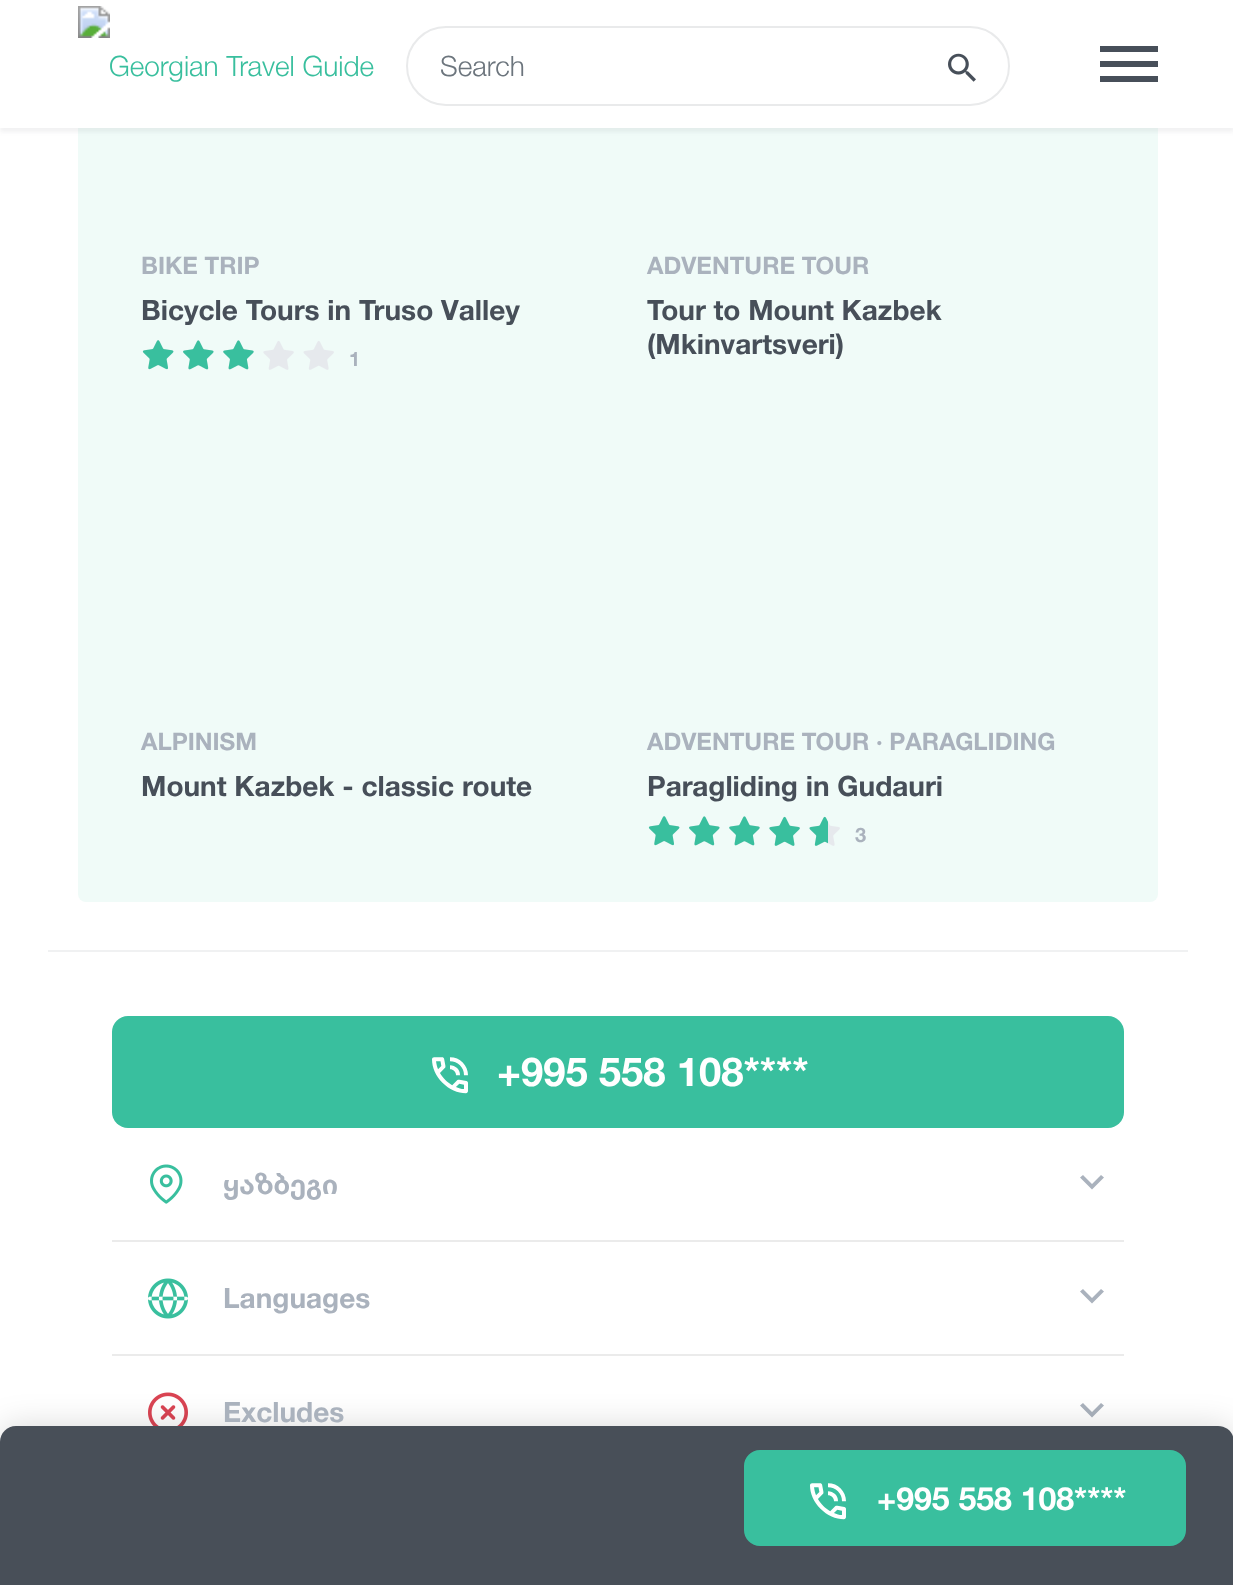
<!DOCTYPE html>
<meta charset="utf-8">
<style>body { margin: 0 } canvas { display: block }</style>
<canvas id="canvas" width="1233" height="1585"></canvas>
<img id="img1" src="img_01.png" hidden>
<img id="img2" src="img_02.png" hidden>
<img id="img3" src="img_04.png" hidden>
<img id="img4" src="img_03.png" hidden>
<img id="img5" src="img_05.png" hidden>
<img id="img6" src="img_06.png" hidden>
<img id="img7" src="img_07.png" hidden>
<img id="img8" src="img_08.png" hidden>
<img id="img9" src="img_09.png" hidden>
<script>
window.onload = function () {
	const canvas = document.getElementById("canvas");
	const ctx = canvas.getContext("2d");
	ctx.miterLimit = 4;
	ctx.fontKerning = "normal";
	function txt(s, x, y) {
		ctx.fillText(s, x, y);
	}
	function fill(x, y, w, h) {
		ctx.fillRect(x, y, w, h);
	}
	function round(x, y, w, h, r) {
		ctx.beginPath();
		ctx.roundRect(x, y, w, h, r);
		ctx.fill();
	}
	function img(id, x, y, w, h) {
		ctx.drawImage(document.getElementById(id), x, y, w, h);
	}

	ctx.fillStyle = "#FFFFFF";
	fill(0, 0, 1233, 1585);
	ctx.fillStyle = "#F0FBF8";
	round(78, -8, 1080, 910, 8);
	ctx.fillStyle = "rgba(72, 79, 88, 0.08)";
	ctx.filter = "blur(2px)";
	ctx.beginPath();
	ctx.rect(0, 4, 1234, 128);
	ctx.fill();
	ctx.filter = "none";
	ctx.fillStyle = "#FFFFFF";
	fill(0, 0, 1233, 128);
	img("img1", 78, 6, 296, 76);
	ctx.beginPath();
	ctx.roundRect(407, 27, 602, 78, 39);
	ctx.strokeStyle = "#E9EAEB";
	ctx.lineWidth = 2;
	ctx.stroke();
	img("img2", 948, 53, 28, 29);
	ctx.fillStyle = "#474F59";
	ctx.beginPath();
	ctx.moveTo(1158, 46);
	ctx.lineTo(1158, 52);
	ctx.lineTo(1100, 52);
	ctx.lineTo(1100, 46);
	ctx.closePath();
	ctx.moveTo(1100, 61);
	ctx.lineTo(1158, 61);
	ctx.lineTo(1158, 67);
	ctx.lineTo(1100, 67);
	ctx.closePath();
	ctx.moveTo(1100, 76);
	ctx.lineTo(1158, 76);
	ctx.lineTo(1158, 82);
	ctx.lineTo(1100, 82);
	ctx.closePath();
	ctx.fill();
	img("img3", 143, 340, 191, 30);
	img("img4", 142, 340, 112, 30);
	img("img3", 649, 816, 191, 30);
	img("img5", 648, 816, 180, 30);
	ctx.fillStyle = "#F0F1F2";
	fill(48, 950, 1140, 2);
	ctx.fillStyle = "#39BF9E";
	round(112, 1016, 1012, 112, 16);
	img("img6", 432, 1057, 36, 37);
	ctx.fillStyle = "#EBEBEB";
	fill(112, 1240, 1012, 2);
	img("img7", 150, 1164, 33, 40);
	ctx.fillStyle = "#AAB2BD";
	ctx.beginPath();
	ctx.moveTo(1083, 1175);
	ctx.lineTo(1092, 1184);
	ctx.lineTo(1101, 1175);
	ctx.lineTo(1104, 1177.5);
	ctx.lineTo(1092, 1189.5);
	ctx.lineTo(1080, 1177.5);
	ctx.closePath();
	ctx.fill();
	ctx.fillStyle = "#EBEBEB";
	fill(112, 1354, 1012, 2);
	img("img8", 148, 1278, 40, 41);
	ctx.fillStyle = "#AAB2BD";
	ctx.beginPath();
	ctx.moveTo(1083, 1289);
	ctx.lineTo(1092, 1298);
	ctx.lineTo(1101, 1289);
	ctx.lineTo(1104, 1291.5);
	ctx.lineTo(1092, 1303.5);
	ctx.lineTo(1080, 1291.5);
	ctx.closePath();
	ctx.fill();
	img("img9", 148, 1392, 40, 34);
	ctx.beginPath();
	ctx.moveTo(1083, 1403);
	ctx.lineTo(1092, 1412);
	ctx.lineTo(1101, 1403);
	ctx.lineTo(1104, 1405.5);
	ctx.lineTo(1092, 1417.5);
	ctx.lineTo(1080, 1405.5);
	ctx.closePath();
	ctx.fill();
	ctx.fillStyle = "rgba(0, 0, 0, 0.15)";
	ctx.filter = "blur(16px)";
	ctx.beginPath();
	ctx.roundRect(0, 1426, 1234, 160, 16);
	ctx.fill();
	ctx.filter = "none";
	ctx.fillStyle = "#484F58";
	ctx.beginPath();
	ctx.moveTo(16, 1426);
	ctx.lineTo(1218, 1426);
	ctx.bezierCurveTo(1227, 1426, 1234, 1433, 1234, 1442);
	ctx.lineTo(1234, 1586);
	ctx.lineTo(0, 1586);
	ctx.lineTo(0, 1442);
	ctx.bezierCurveTo(0, 1433, 7, 1426, 16, 1426);
	ctx.closePath();
	ctx.fill();
	ctx.fillStyle = "#39BF9E";
	ctx.beginPath();
	ctx.roundRect(746, 1452, 438, 92, 14);
	ctx.fill();
	ctx.strokeStyle = "#39BF9E";
	ctx.lineWidth = 4;
	ctx.stroke();
	img("img6", 810, 1483, 36, 37);
	ctx.font = "300 28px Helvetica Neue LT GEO";
	ctx.fillStyle = "#6C757D";
	txt("Search", 440, 76);
	ctx.font = "bold 24px Helvetica Neue LT GEO";
	ctx.fillStyle = "#AAB2BD";
	txt("BIKE TRIP", 141, 274);
	ctx.font = "bold 28px Helvetica Neue LT GEO";
	ctx.fillStyle = "#474F59";
	txt("Bicycle Tours in Truso Valley", 141, 320);
	ctx.font = "bold 20px Helvetica Neue LT GEO";
	ctx.fillStyle = "#AAB2BD";
	txt("1", 349, 366);
	ctx.font = "bold 24px Helvetica Neue LT GEO";
	txt("ADVENTURE TOUR", 647, 274);
	ctx.font = "bold 28px Helvetica Neue LT GEO";
	ctx.fillStyle = "#474F59";
	txt("Tour to Mount Kazbek", 647, 320);
	txt("(Mkinvartsveri)", 647, 354);
	ctx.font = "bold 24px Helvetica Neue LT GEO";
	ctx.fillStyle = "#AAB2BD";
	txt("ALPINISM", 141, 750);
	ctx.font = "bold 28px Helvetica Neue LT GEO";
	ctx.fillStyle = "#474F59";
	txt("Mount Kazbek - classic route", 141, 796);
	ctx.font = "bold 24px Helvetica Neue LT GEO";
	ctx.fillStyle = "#AAB2BD";
	txt("ADVENTURE TOUR · PARAGLIDING", 647, 750);
	ctx.font = "bold 28px Helvetica Neue LT GEO";
	ctx.fillStyle = "#474F59";
	txt("Paragliding in Gudauri", 647, 796);
	ctx.font = "bold 20px Helvetica Neue LT GEO";
	ctx.fillStyle = "#AAB2BD";
	txt("3", 855, 842);
	ctx.font = "bold 40px Helvetica Neue LT GEO";
	ctx.fillStyle = "#FFFFFF";
	txt("+995 558 108****", 497, 1086);
	ctx.font = "bold 28px Helvetica Neue LT GEO";
	ctx.fillStyle = "#AAB2BD";
	txt("ყაზბეგი", 223, 1194);
	txt("Languages", 223, 1308);
	txt("Excludes", 223, 1422);
	ctx.font = "bold 32px Helvetica Neue LT GEO";
	ctx.fillStyle = "#FFFFFF";
	txt("+995 558 108****", 877, 1510);
};
</script>
